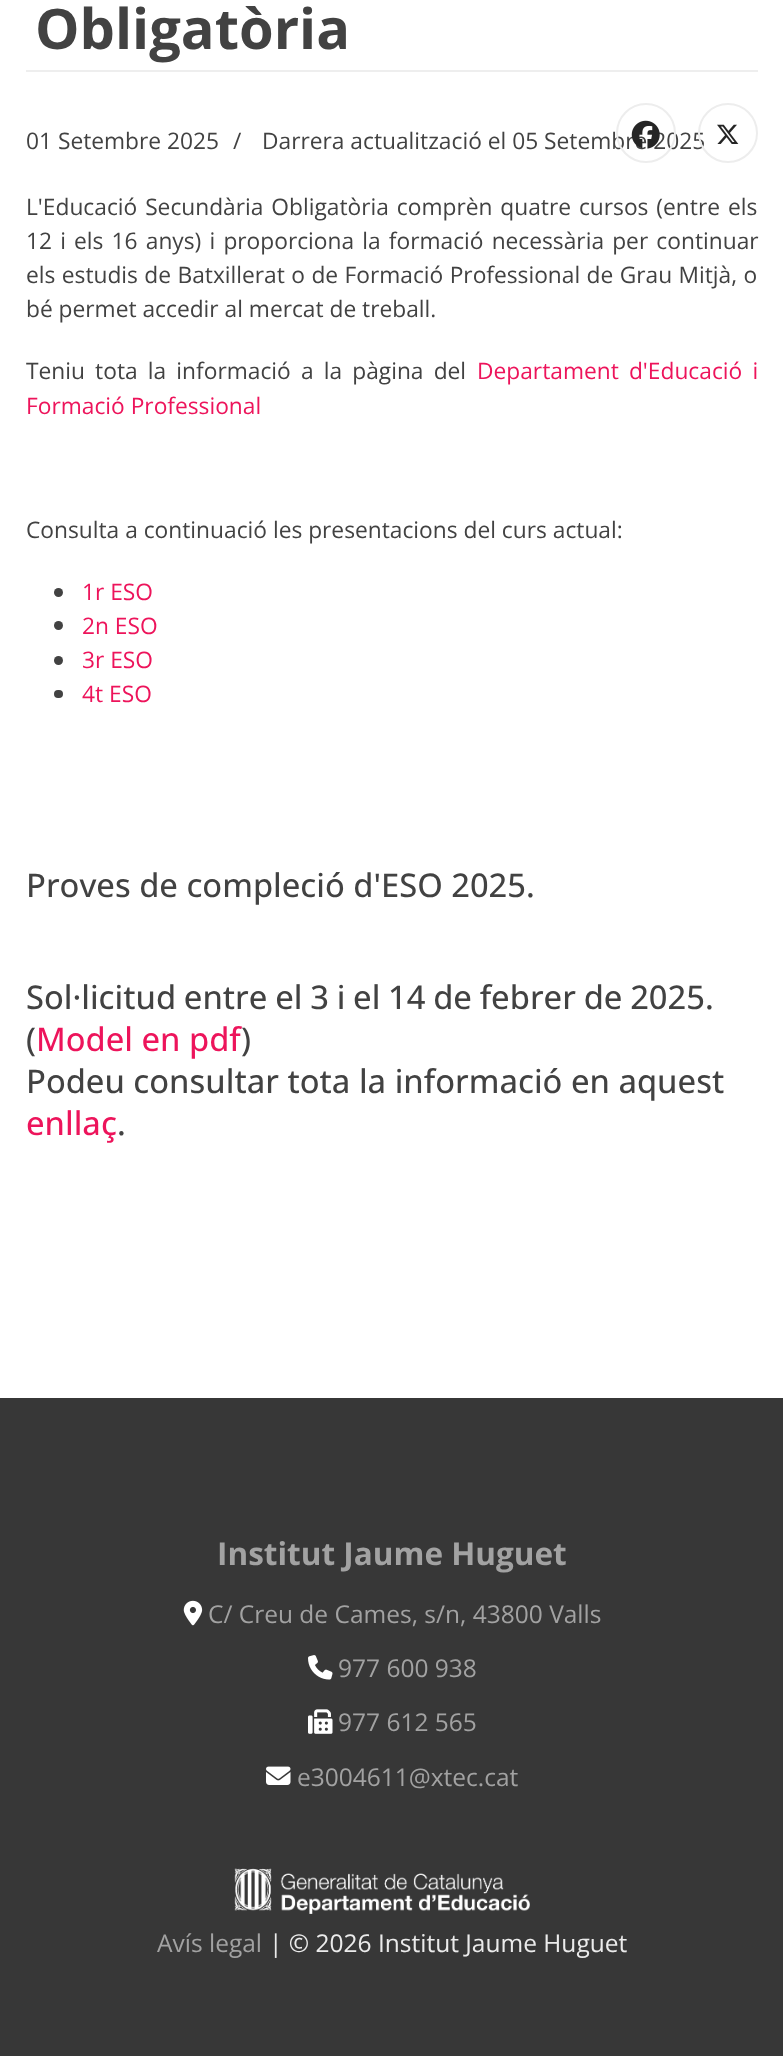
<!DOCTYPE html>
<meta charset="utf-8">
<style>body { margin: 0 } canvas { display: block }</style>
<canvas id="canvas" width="783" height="2056"></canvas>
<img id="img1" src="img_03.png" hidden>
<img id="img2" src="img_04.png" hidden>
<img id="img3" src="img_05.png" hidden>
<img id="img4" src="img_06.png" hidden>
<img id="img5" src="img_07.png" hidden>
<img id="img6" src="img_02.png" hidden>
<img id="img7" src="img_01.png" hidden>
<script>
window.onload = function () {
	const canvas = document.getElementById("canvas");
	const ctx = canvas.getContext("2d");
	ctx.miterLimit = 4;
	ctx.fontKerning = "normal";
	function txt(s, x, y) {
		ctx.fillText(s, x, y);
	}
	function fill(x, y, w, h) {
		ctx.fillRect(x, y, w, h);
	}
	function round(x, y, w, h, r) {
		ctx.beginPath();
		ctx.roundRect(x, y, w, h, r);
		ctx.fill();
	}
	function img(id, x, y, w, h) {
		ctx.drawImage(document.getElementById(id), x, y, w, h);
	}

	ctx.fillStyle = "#FFFFFF";
	fill(0, 0, 783, 2056);
	ctx.fillStyle = "#EEEEEE";
	fill(26, 70, 732, 2);
	ctx.fillStyle = "#424242";
	ctx.beginPath();
	ctx.arc(58.5, 592.5, 4.5, 0, Math.PI * 2);
	ctx.fill();
	ctx.beginPath();
	ctx.arc(58.5, 625.5, 4.5, 0, Math.PI * 2);
	ctx.fill();
	ctx.beginPath();
	ctx.arc(58.5, 660.5, 4.5, 0, Math.PI * 2);
	ctx.fill();
	round(54, 690, 9, 8, 4);
	ctx.fillStyle = "#373737";
	fill(0, 1398, 783, 658);
	img("img1", 183, 1600, 20, 26);
	img("img2", 308, 1655, 25, 25);
	img("img3", 308, 1709, 25, 25);
	img("img4", 266, 1766, 25, 19);
	img("img5", 234, 1868, 296, 46);
	ctx.font = "bold 56px Open Sans";
	ctx.fillStyle = "#424242";
	txt("Obligatòria", 35, 49);
	ctx.font = "22.75px Open Sans";
	txt("01 Setembre 2025", 26, 149);
	txt("/", 233, 149);
	txt("Darrera actualització el 05 Setembre 2025", 262, 149);
	ctx.beginPath();
	ctx.arc(728, 133, 29, 0, Math.PI * 2);
	ctx.strokeStyle = "#EDEDED";
	ctx.lineWidth = 2;
	ctx.stroke();
	img("img6", 717, 124, 22, 20);
	ctx.beginPath();
	ctx.arc(646, 133, 29, 0, Math.PI * 2);
	ctx.stroke();
	img("img7", 631, 120, 29, 29);
	ctx.wordSpacing = "2px";
	txt("L'Educació Secundària Obligatòria comprèn quatre cursos (entre els", 26, 215);
	ctx.wordSpacing = "2.25px";
	txt("12 i els 16 anys) i proporciona la formació necessària per continuar", 26, 249);
	ctx.wordSpacing = "0.5px";
	txt("els estudis de Batxillerat o de Formació Professional de Grau Mitjà, o", 26, 283);
	ctx.wordSpacing = "0px";
	txt("bé permet accedir al mercat de treball.", 26, 317);
	ctx.wordSpacing = "4.25px";
	txt("Teniu tota la informació a la pàgina del", 26, 379);
	ctx.fillStyle = "#ED145B";
	txt("Departament d'Educació i", 477, 379);
	ctx.wordSpacing = "0px";
	txt("Formació Professional", 26, 414);
	ctx.fillStyle = "#424242";
	txt("Consulta a continuació les presentacions del curs actual:", 26, 538);
	ctx.fillStyle = "#ED145B";
	txt("1r ESO", 82, 600);
	txt("2n ESO", 82, 634);
	txt("3r ESO", 82, 668);
	txt("4t ESO", 82, 702);
	ctx.font = "500 32.7px Open Sans";
	ctx.fillStyle = "#424242";
	txt("Proves de compleció d'ESO 2025.", 26, 897);
	ctx.wordSpacing = "-0.75px";
	txt("Sol·licitud entre el 3 i el 14 de febrer de 2025.", 26, 1009);
	ctx.wordSpacing = "0px";
	txt("(", 26, 1051);
	ctx.fillStyle = "#ED145B";
	txt("Model en pdf", 36, 1051);
	ctx.fillStyle = "#424242";
	txt(")", 241, 1051);
	txt("Podeu consultar tota la informació en aquest", 26, 1093);
	ctx.fillStyle = "#ED145B";
	txt("enllaç", 26, 1135);
	ctx.fillStyle = "#424242";
	txt(".", 117, 1135);
	ctx.font = "bold 31.5px Open Sans";
	ctx.fillStyle = "#A2A2A2";
	txt("Institut Jaume Huguet", 217, 1565);
	ctx.font = "24.5px Open Sans";
	txt("C/ Creu de Cames, s/n, 43800 Valls", 208, 1623);
	txt("977 600 938", 338, 1677);
	txt("977 612 565", 338, 1731);
	txt("e3004611@xtec.cat", 297, 1786);
	txt("Avís legal", 157, 1952);
	ctx.fillStyle = "#EBEBEB";
	txt("| © 2026 Institut Jaume Huguet", 269, 1952);
};
</script>
